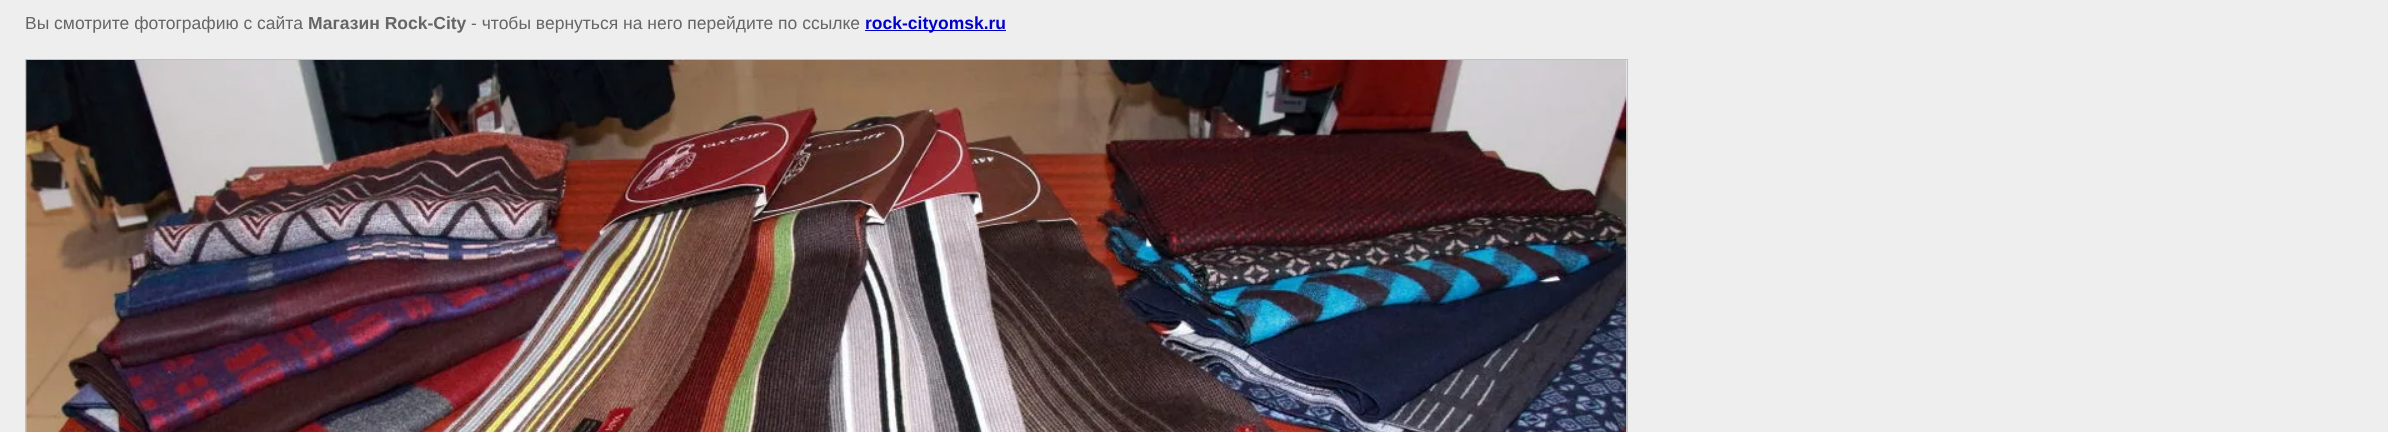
<!DOCTYPE html>
<meta charset="utf-8">
<style>body { margin: 0 } canvas { display: block }</style>
<canvas id="canvas" width="2388" height="432"></canvas>
<img id="img1" src="img_01.png" hidden>
<script>
window.onload = function () {
	const canvas = document.getElementById("canvas");
	const ctx = canvas.getContext("2d");
	ctx.miterLimit = 4;
	ctx.fontKerning = "normal";
	function txt(s, x, y) {
		ctx.fillText(s, x, y);
	}
	function fill(x, y, w, h) {
		ctx.fillRect(x, y, w, h);
	}
	function img(id, x, y, w, h) {
		ctx.drawImage(document.getElementById(id), x, y, w, h);
	}

	ctx.fillStyle = "#EEEEEE";
	fill(0, 0, 2388, 432);
	ctx.fillStyle = "#0000CC";
	fill(865, 30, 141, 1);
	ctx.strokeStyle = "#C0C0C0";
	ctx.strokeRect(25.5, 59.5, 1602, 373);
	img("img1", 26, 60, 1601, 372);
	ctx.font = "17.5px Liberation Sans";
	ctx.fillStyle = "#666666";
	txt("Вы смотрите фотографию с сайта", 25, 29);
	ctx.font = "bold 17.5px Liberation Sans";
	txt("Магазин Rock-City", 308, 29);
	ctx.font = "17.5px Liberation Sans";
	txt("- чтобы вернуться на него перейдите по ссылке", 471, 29);
	ctx.font = "bold 17.5px Liberation Sans";
	ctx.fillStyle = "#0000CC";
	txt("rock-cityomsk.ru", 865, 29);
};
</script>
